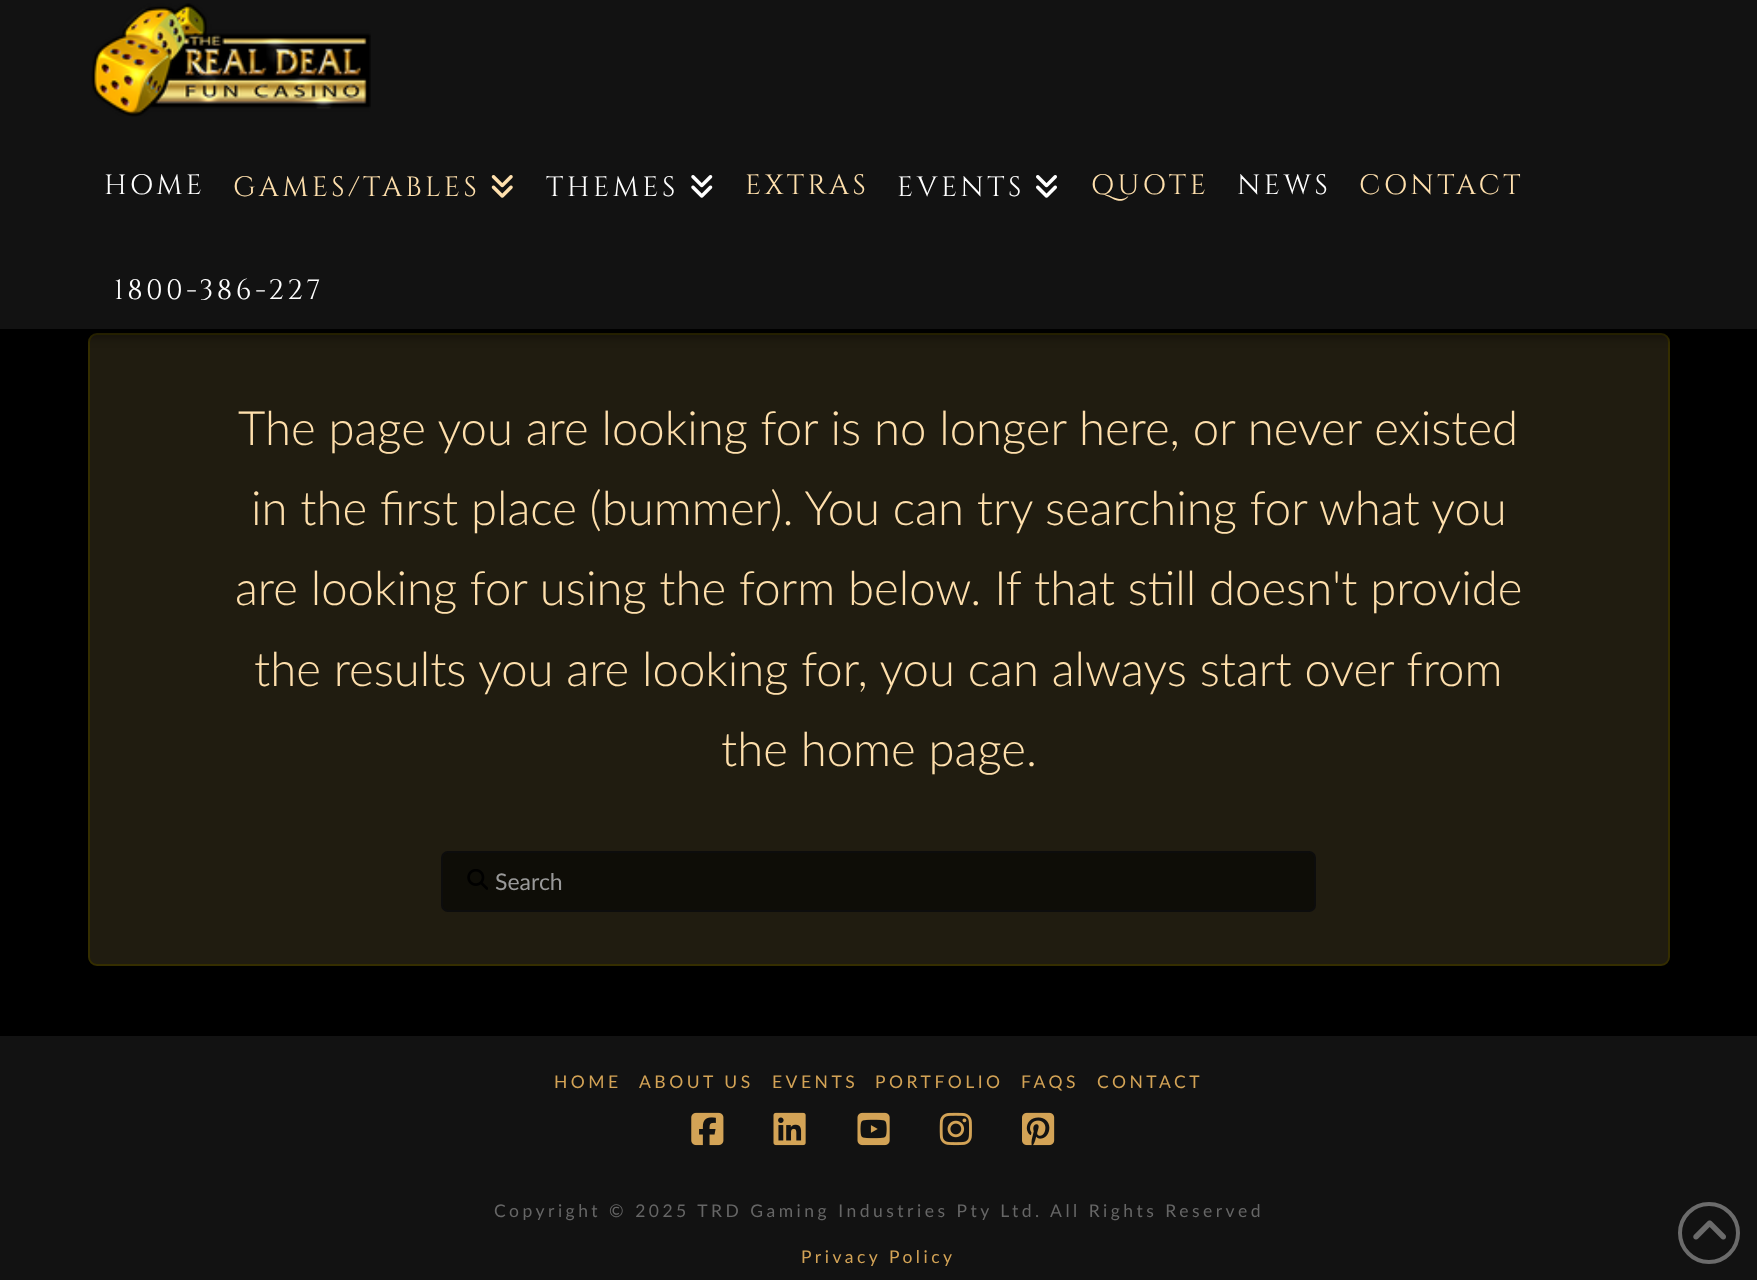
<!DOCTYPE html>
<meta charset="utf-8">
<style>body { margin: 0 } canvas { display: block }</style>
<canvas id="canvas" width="1757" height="1280"></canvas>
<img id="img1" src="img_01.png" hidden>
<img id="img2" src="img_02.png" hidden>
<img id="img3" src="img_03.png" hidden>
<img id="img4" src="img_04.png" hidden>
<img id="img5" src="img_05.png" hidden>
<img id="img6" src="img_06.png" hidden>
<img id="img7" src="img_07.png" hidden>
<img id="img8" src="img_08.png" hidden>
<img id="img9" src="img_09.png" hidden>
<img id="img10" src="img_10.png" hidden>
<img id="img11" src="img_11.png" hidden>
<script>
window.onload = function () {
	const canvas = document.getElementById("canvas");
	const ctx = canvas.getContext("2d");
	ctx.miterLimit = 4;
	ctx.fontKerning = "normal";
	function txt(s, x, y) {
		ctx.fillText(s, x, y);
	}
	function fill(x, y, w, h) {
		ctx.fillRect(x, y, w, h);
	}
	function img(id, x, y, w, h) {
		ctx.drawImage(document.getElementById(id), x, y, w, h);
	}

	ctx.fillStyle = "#000000";
	fill(0, 0, 1757, 1280);
	ctx.fillStyle = "#201C10";
	ctx.beginPath();
	ctx.roundRect(89, 334, 1580, 631, 8);
	ctx.fill();
	ctx.strokeStyle = "#352E00";
	ctx.lineWidth = 2;
	ctx.stroke();
	ctx.fillStyle = "rgba(0, 0, 0, 0.47)";
	ctx.filter = "blur(5.5px)";
	ctx.beginPath();
	ctx.rect(0, 5, 1757, 331);
	ctx.fill();
	ctx.filter = "none";
	ctx.fillStyle = "#121212";
	fill(0, 0, 1757, 329);
	img("img1", 91, 3, 280, 114);
	img("img2", 491, 175, 22, 23);
	img("img3", 691, 175, 22, 23);
	img("img4", 1036, 175, 21, 23);
	ctx.fillStyle = "#0E0D07";
	ctx.beginPath();
	ctx.roundRect(442, 852, 873, 59, 6);
	ctx.fill();
	ctx.strokeStyle = "#0D0D0D";
	ctx.stroke();
	img("img5", 467, 869, 21, 21);
	ctx.fillStyle = "#121212";
	fill(0, 1036, 1757, 244);
	img("img6", 691, 1112, 33, 34);
	img("img7", 773, 1112, 33, 34);
	img("img8", 857, 1112, 33, 34);
	img("img9", 939, 1112, 33, 34);
	img("img10", 1022, 1112, 33, 34);
	ctx.beginPath();
	ctx.arc(1709, 1233, 29, 0, Math.PI * 2);
	ctx.strokeStyle = "#6B6B6B";
	ctx.lineWidth = 4;
	ctx.stroke();
	img("img11", 1693, 1220, 33, 20);
	ctx.letterSpacing = "3.5px";
	ctx.font = "28px Cinzel";
	ctx.fillStyle = "#FFFFFF";
	txt("HOME", 104, 194);
	ctx.fillStyle = "#FFE0AD";
	txt("GAMES/TABLES", 233, 196);
	ctx.fillStyle = "#FFFFFF";
	txt("THEMES", 546, 196);
	ctx.fillStyle = "#FFE0AD";
	txt("EXTRAS", 745, 194);
	ctx.fillStyle = "#FFFFFF";
	txt("EVENTS", 897, 196);
	ctx.fillStyle = "#FFE0AD";
	txt("QUOTE", 1091, 194);
	ctx.fillStyle = "#FFFFFF";
	txt("NEWS", 1237, 194);
	ctx.fillStyle = "#FFE0AD";
	txt("CONTACT", 1359, 194);
	ctx.fillStyle = "#FFFFFF";
	txt("1800-386-227", 114, 299);
	ctx.letterSpacing = "0px";
	ctx.font = "300 47.25px Lato";
	ctx.fillStyle = "#FFE0AD";
	txt("The page you are looking for is no longer here, or never existed", 238, 445);
	txt("in the first place (bummer). You can try searching for what you", 251, 525);
	txt("are looking for using the form below. If that still doesn't provide", 235, 605);
	txt("the results you are looking for, you can always start over from", 254, 686);
	txt("the home page.", 721, 766);
	ctx.font = "23px Lato";
	ctx.fillStyle = "#999999";
	txt("Search", 495, 890);
	ctx.letterSpacing = "3.5px";
	ctx.font = "17.5px Lato";
	ctx.fillStyle = "#D3A356";
	txt("HOME", 554, 1088);
	txt("ABOUT US", 639, 1088);
	txt("EVENTS", 772, 1088);
	txt("PORTFOLIO", 875, 1088);
	txt("FAQS", 1021, 1088);
	txt("CONTACT", 1097, 1088);
	ctx.fillStyle = "#666666";
	txt("Copyright © 2025 TRD Gaming Industries Pty Ltd. All Rights Reserved", 494, 1217);
	ctx.fillStyle = "#D3A356";
	txt("Privacy Policy", 801, 1263);
};
</script>
